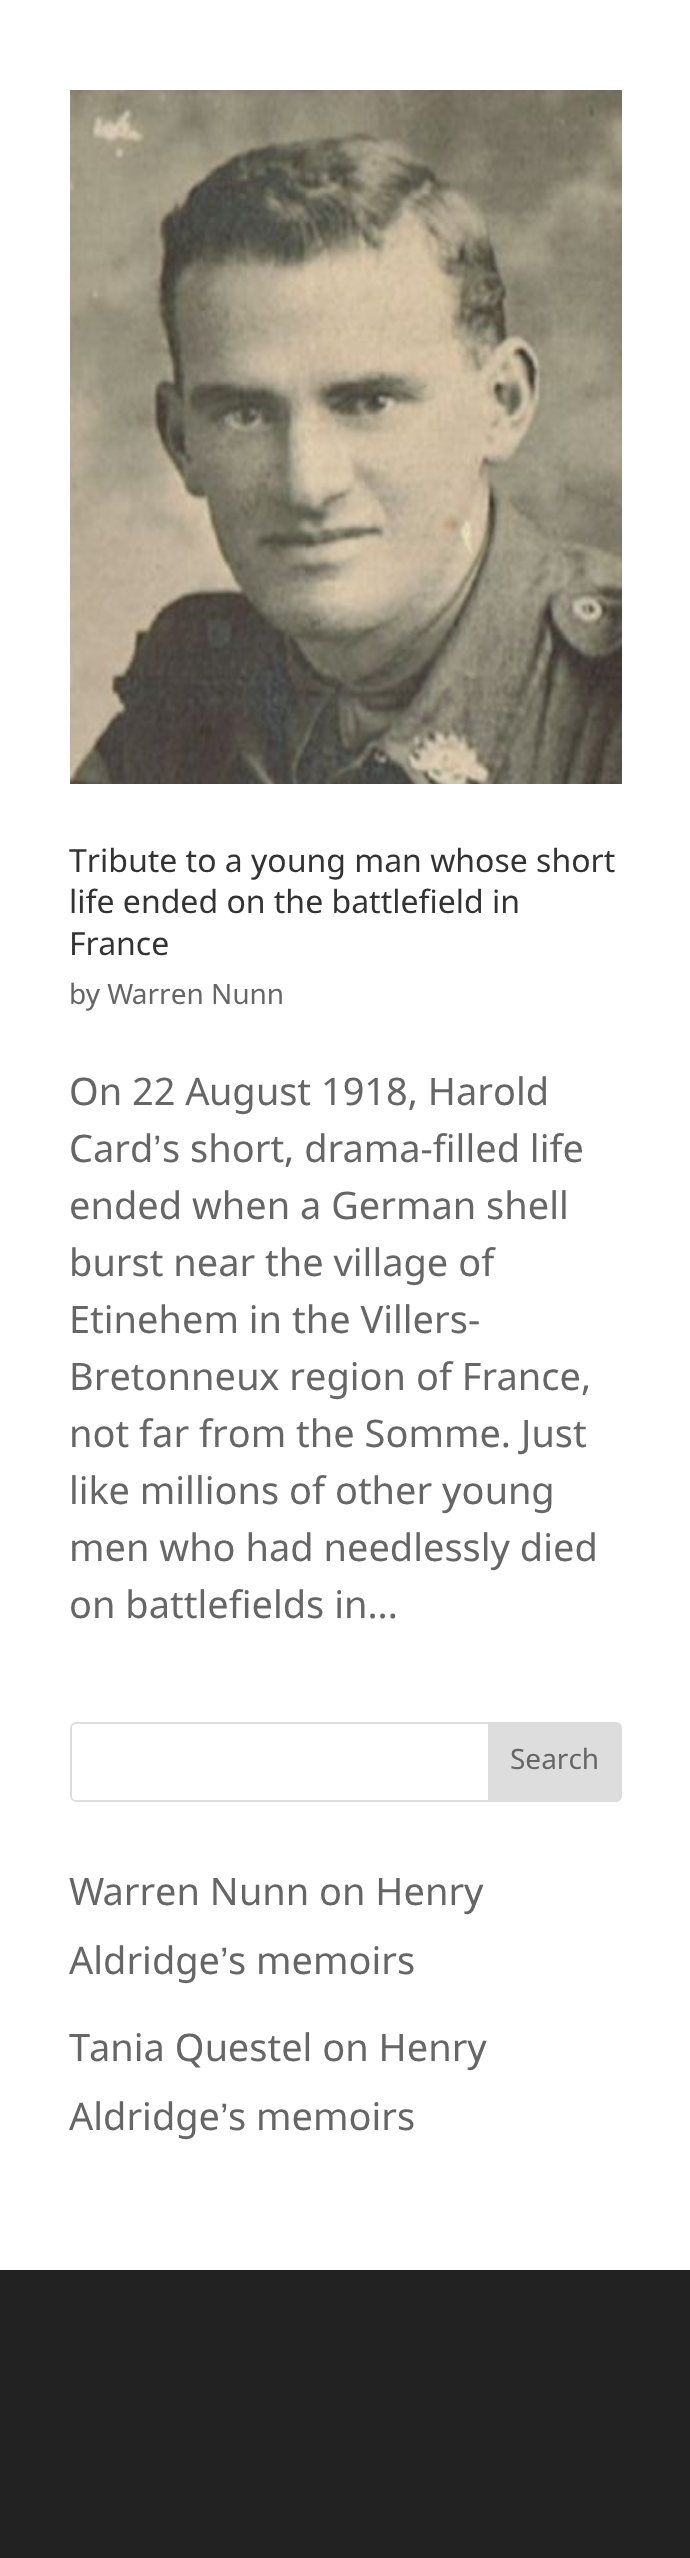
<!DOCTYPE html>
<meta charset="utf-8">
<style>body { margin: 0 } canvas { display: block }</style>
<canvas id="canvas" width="690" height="2558"></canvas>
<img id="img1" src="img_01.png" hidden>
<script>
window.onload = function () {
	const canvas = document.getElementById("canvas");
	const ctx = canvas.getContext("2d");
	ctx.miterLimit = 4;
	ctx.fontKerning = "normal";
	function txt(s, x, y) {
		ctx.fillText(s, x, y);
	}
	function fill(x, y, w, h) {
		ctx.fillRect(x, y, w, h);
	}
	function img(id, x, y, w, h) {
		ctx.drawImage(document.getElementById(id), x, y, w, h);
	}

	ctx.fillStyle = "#FFFFFF";
	fill(0, 0, 690, 2558);
	img("img1", 70, 90, 552, 694);
	ctx.beginPath();
	ctx.roundRect(71, 1723, 550, 78, 5);
	ctx.strokeStyle = "#DDDDDD";
	ctx.lineWidth = 2;
	ctx.stroke();
	ctx.fillStyle = "#DDDDDD";
	ctx.beginPath();
	ctx.roundRect(489, 1723, 132, 78, [0, 5, 5, 0]);
	ctx.fill();
	ctx.stroke();
	ctx.fillStyle = "#222222";
	fill(0, 2270, 690, 288);
	ctx.font = "32px Nokora";
	ctx.fillStyle = "#333333";
	txt("Tribute to a young man whose short", 69, 872);
	txt("life ended on the battlefield in", 69, 913);
	txt("France", 69, 955);
	ctx.font = "28px Nokora";
	ctx.fillStyle = "#666666";
	txt("by Warren Nunn", 69, 1004);
	ctx.font = "38px Nokora";
	txt("On 22 August 1918, Harold", 69, 1105);
	txt("Card", 69, 1162);
	ctx.font = "38px Liberation Sans";
	txt("’", 153, 1162);
	ctx.font = "38px Nokora";
	txt("s short, drama-filled life", 162, 1162);
	txt("ended when a German shell", 69, 1219);
	txt("burst near the village of", 69, 1276);
	txt("Etinehem in the Villers-", 69, 1333);
	txt("Bretonneux region of France,", 69, 1390);
	txt("not far from the Somme. Just", 69, 1447);
	txt("like millions of other young", 69, 1504);
	txt("men who had needlessly died", 69, 1561);
	txt("on battlefields in...", 69, 1618);
	ctx.font = "28px Nokora";
	txt("Search", 510, 1769);
	ctx.font = "38px Nokora";
	txt("Warren Nunn on Henry", 69, 1905);
	txt("Aldridge", 69, 1974);
	ctx.font = "38px Liberation Sans";
	txt("’", 220, 1974);
	ctx.font = "38px Nokora";
	txt("s memoirs", 228, 1974);
	txt("Tania Questel on Henry", 69, 2061);
	txt("Aldridge", 69, 2130);
	ctx.font = "38px Liberation Sans";
	txt("’", 220, 2130);
	ctx.font = "38px Nokora";
	txt("s memoirs", 228, 2130);
};
</script>
